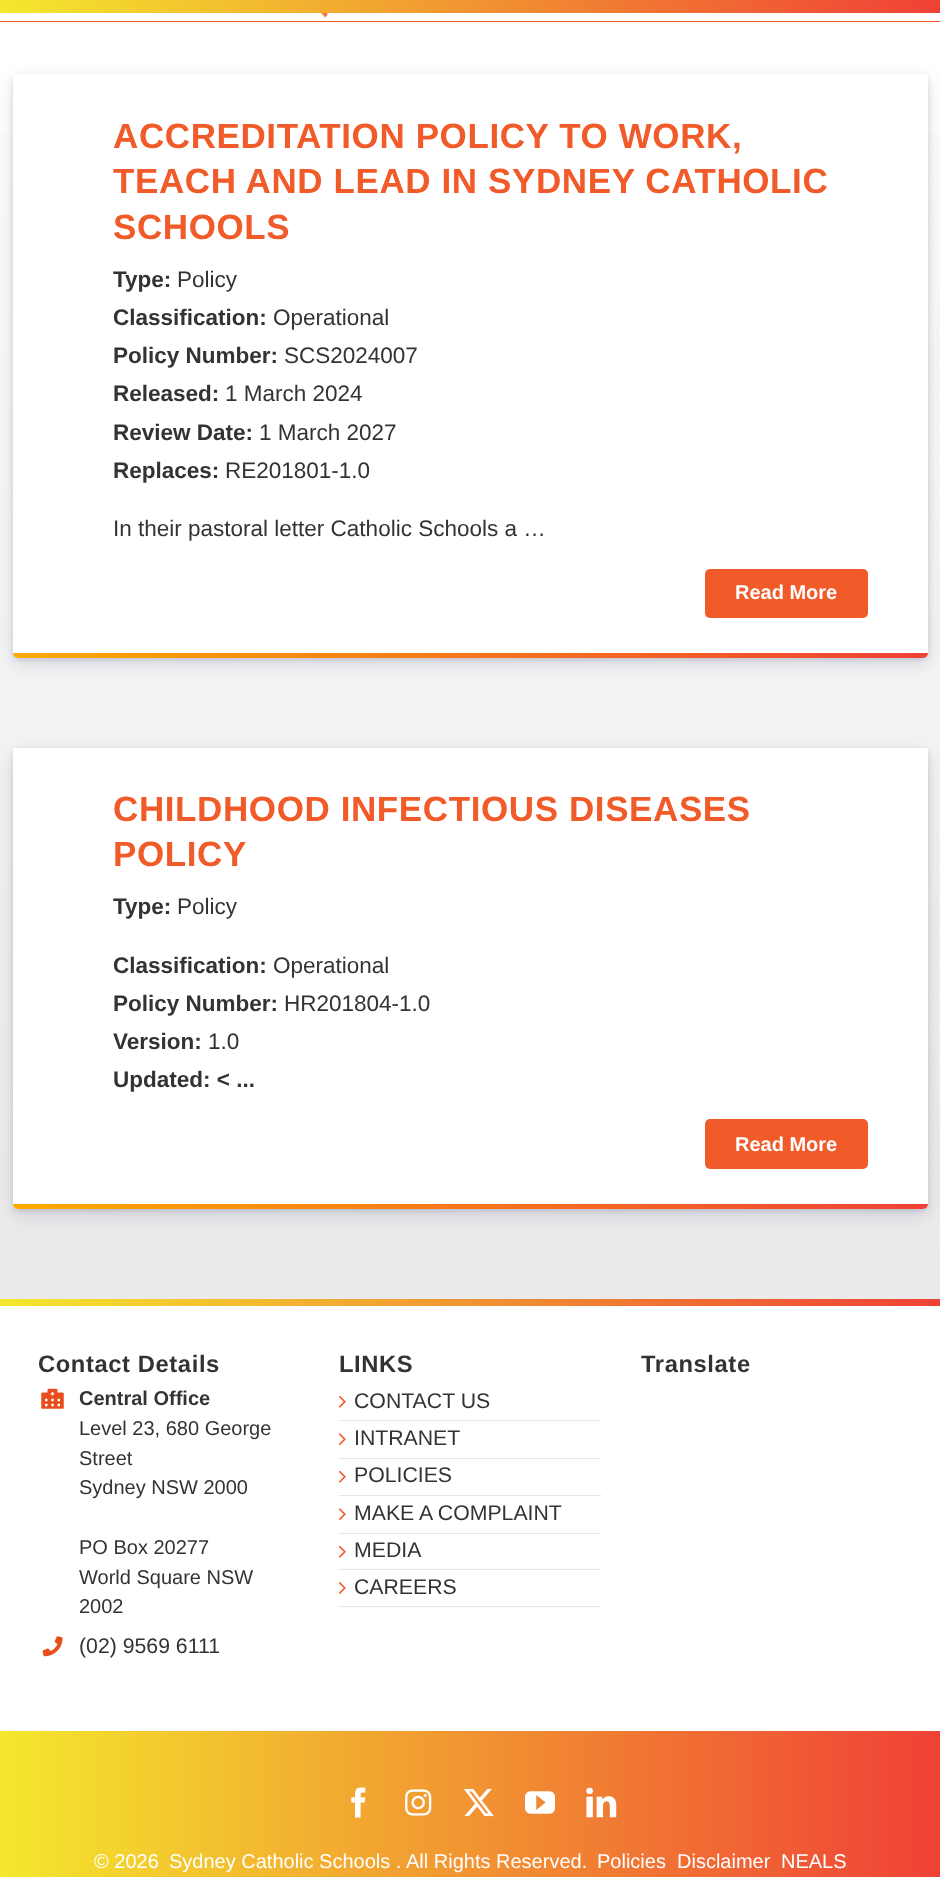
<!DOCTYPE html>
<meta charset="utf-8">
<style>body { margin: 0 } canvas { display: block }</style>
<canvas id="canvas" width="940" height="1877"></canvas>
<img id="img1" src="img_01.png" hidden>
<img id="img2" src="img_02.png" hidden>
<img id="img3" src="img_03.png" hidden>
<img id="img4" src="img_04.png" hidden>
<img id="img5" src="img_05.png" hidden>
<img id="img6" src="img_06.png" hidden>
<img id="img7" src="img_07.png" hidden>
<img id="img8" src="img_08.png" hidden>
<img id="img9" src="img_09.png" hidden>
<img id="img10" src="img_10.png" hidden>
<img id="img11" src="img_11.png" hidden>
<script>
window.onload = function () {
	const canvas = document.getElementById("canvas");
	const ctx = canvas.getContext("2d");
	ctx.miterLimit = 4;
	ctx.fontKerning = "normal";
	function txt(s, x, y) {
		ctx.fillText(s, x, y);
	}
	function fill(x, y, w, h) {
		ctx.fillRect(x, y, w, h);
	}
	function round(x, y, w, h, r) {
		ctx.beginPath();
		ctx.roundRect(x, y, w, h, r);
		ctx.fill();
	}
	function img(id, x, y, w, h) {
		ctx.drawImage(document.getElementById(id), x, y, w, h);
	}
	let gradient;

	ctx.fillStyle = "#FFFFFF";
	fill(0, 0, 940, 1877);
	gradient = ctx.createLinearGradient(0, 6.3, 940, 6.2);
	gradient.addColorStop(0, "#F4E72D");
	gradient.addColorStop(1, "#EF4136");
	ctx.fillStyle = gradient;
	fill(0, 0, 940, 13);
	img("img1", 320, 13, 9, 5);
	ctx.fillStyle = "#F15829";
	fill(0, 21, 940, 1);
	gradient = ctx.createLinearGradient(470, -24, 470, 1299);
	gradient.addColorStop(0, "#FFFFFF");
	gradient.addColorStop(1, "#EAEAEA");
	ctx.fillStyle = gradient;
	fill(0, 134, 940, 1165);
	ctx.fillStyle = "rgba(93, 100, 148, 0.2)";
	ctx.filter = "blur(2.5px)";
	ctx.beginPath();
	ctx.roundRect(13, 76, 915, 584, 5);
	ctx.fill();
	ctx.filter = "none";
	ctx.fillStyle = "rgba(37, 44, 97, 0.15)";
	ctx.filter = "blur(9.5px)";
	ctx.beginPath();
	ctx.roundRect(13, 80, 915, 584, 5);
	ctx.fill();
	ctx.filter = "none";
	ctx.fillStyle = "#FFFFFF";
	ctx.beginPath();
	ctx.roundRect(13, 74, 915, 584, [0, 0, 5, 5]);
	ctx.fill();
	ctx.fillStyle = "#F15A29";
	round(705, 569, 163, 49, 5);
	gradient = ctx.createLinearGradient(13, 655, 928, 655);
	gradient.addColorStop(0, "#FFAA00");
	gradient.addColorStop(1, "#EF4136");
	ctx.fillStyle = gradient;
	ctx.beginPath();
	ctx.roundRect(13, 653, 915, 5, [0, 0, 5, 5]);
	ctx.fill();
	ctx.fillStyle = "rgba(93, 100, 148, 0.2)";
	ctx.filter = "blur(2.5px)";
	ctx.beginPath();
	ctx.roundRect(13, 750, 915, 461, 5);
	ctx.fill();
	ctx.filter = "none";
	ctx.fillStyle = "rgba(37, 44, 97, 0.15)";
	ctx.filter = "blur(9.5px)";
	ctx.beginPath();
	ctx.roundRect(13, 754, 915, 461, 5);
	ctx.fill();
	ctx.filter = "none";
	ctx.fillStyle = "#FFFFFF";
	ctx.beginPath();
	ctx.roundRect(13, 748, 915, 461, [0, 0, 5, 5]);
	ctx.fill();
	ctx.fillStyle = "#F15A29";
	round(705, 1119, 163, 50, 5);
	gradient = ctx.createLinearGradient(13, 1206, 928, 1206);
	gradient.addColorStop(0, "#FFAA00");
	gradient.addColorStop(1, "#EF4136");
	ctx.fillStyle = gradient;
	ctx.beginPath();
	ctx.roundRect(13, 1204, 915, 5, [0, 0, 5, 5]);
	ctx.fill();
	gradient = ctx.createLinearGradient(0, 1303, 940, 1303);
	gradient.addColorStop(0, "#F4E72D");
	gradient.addColorStop(1, "#EF4136");
	ctx.fillStyle = gradient;
	fill(0, 1299, 940, 7);
	img("img2", 41, 1388, 23, 21);
	img("img3", 42, 1636, 21, 21);
	ctx.fillStyle = "#E7E4E2";
	fill(339, 1420, 262, 1);
	img("img4", 338, 1395, 8, 13);
	fill(339, 1458, 262, 1);
	img("img5", 338, 1433, 8, 13);
	fill(339, 1495, 262, 1);
	img("img4", 338, 1470, 8, 13);
	fill(339, 1533, 262, 1);
	img("img5", 338, 1508, 8, 13);
	fill(339, 1569, 262, 1);
	img("img4", 338, 1545, 8, 13);
	fill(339, 1606, 262, 1);
	img("img6", 339, 1582, 7, 12);
	gradient = ctx.createLinearGradient(0, 1833, 940, 1833);
	gradient.addColorStop(0, "#F4E72D");
	gradient.addColorStop(1, "#EF4136");
	ctx.fillStyle = gradient;
	fill(0, 1731, 940, 146);
	img("img7", 351, 1787, 15, 31);
	img("img8", 405, 1789, 27, 27);
	img("img9", 464, 1788, 30, 29);
	img("img10", 525, 1791, 30, 23);
	img("img11", 586, 1787, 31, 31);
	ctx.letterSpacing = "0.6px";
	ctx.font = "bold 35px Liberation Sans";
	ctx.fillStyle = "#F15A29";
	txt("ACCREDITATION POLICY TO WORK,", 113, 148);
	txt("TEACH AND LEAD IN SYDNEY CATHOLIC", 113, 193);
	txt("SCHOOLS", 113, 239);
	ctx.letterSpacing = "0px";
	ctx.font = "bold 22.5px Liberation Sans";
	ctx.fillStyle = "#333333";
	txt("Type:", 113, 287);
	ctx.font = "22.5px Liberation Sans";
	txt("Policy", 177, 287);
	ctx.font = "bold 22.5px Liberation Sans";
	txt("Classification:", 113, 325);
	ctx.font = "22.5px Liberation Sans";
	txt("Operational", 273, 325);
	ctx.font = "bold 22.5px Liberation Sans";
	txt("Policy Number:", 113, 363);
	ctx.font = "22.5px Liberation Sans";
	txt("SCS2024007", 284, 363);
	ctx.font = "bold 22.5px Liberation Sans";
	txt("Released:", 113, 401);
	ctx.font = "22.5px Liberation Sans";
	txt("1 March 2024", 225, 401);
	ctx.font = "bold 22.5px Liberation Sans";
	txt("Review Date:", 113, 440);
	ctx.font = "22.5px Liberation Sans";
	txt("1 March 2027", 259, 440);
	ctx.font = "bold 22.5px Liberation Sans";
	txt("Replaces:", 113, 478);
	ctx.font = "22.5px Liberation Sans";
	txt("RE201801-1.0", 225, 478);
	txt("In their pastoral letter Catholic Schools a …", 113, 536);
	ctx.font = "bold 20px Liberation Sans";
	ctx.fillStyle = "#FFFFFF";
	txt("Read More", 735, 599);
	ctx.letterSpacing = "0.6px";
	ctx.font = "bold 35px Liberation Sans";
	ctx.fillStyle = "#F15A29";
	txt("CHILDHOOD INFECTIOUS DISEASES", 113, 821);
	txt("POLICY", 113, 866);
	ctx.letterSpacing = "0px";
	ctx.font = "bold 22.5px Liberation Sans";
	ctx.fillStyle = "#333333";
	txt("Type:", 113, 914);
	ctx.font = "22.5px Liberation Sans";
	txt("Policy", 177, 914);
	ctx.font = "bold 22.5px Liberation Sans";
	txt("Classification:", 113, 973);
	ctx.font = "22.5px Liberation Sans";
	txt("Operational", 273, 973);
	ctx.font = "bold 22.5px Liberation Sans";
	txt("Policy Number:", 113, 1011);
	ctx.font = "22.5px Liberation Sans";
	txt("HR201804-1.0", 284, 1011);
	ctx.font = "bold 22.5px Liberation Sans";
	txt("Version:", 113, 1049);
	ctx.font = "22.5px Liberation Sans";
	txt("1.0", 208, 1049);
	ctx.font = "bold 22.5px Liberation Sans";
	txt("Updated: < ...", 113, 1087);
	ctx.font = "bold 20px Liberation Sans";
	ctx.fillStyle = "#FFFFFF";
	txt("Read More", 735, 1151);
	ctx.letterSpacing = "0.6px";
	ctx.font = "bold 23.75px Liberation Sans";
	ctx.fillStyle = "#333333";
	txt("Contact Details", 38, 1372);
	ctx.letterSpacing = "0px";
	ctx.font = "bold 20px Liberation Sans";
	txt("Central Office", 79, 1405);
	ctx.font = "20px Liberation Sans";
	txt("Level 23, 680 George", 79, 1435);
	txt("Street", 79, 1465);
	txt("Sydney NSW 2000", 79, 1494);
	txt("PO Box 20277", 79, 1554);
	txt("World Square NSW", 79, 1584);
	txt("2002", 79, 1613);
	ctx.font = "21.25px Liberation Sans";
	txt("(02) 9569 6111", 79, 1653);
	ctx.letterSpacing = "0.6px";
	ctx.font = "bold 23.75px Liberation Sans";
	txt("LINKS", 339, 1372);
	ctx.letterSpacing = "0px";
	ctx.font = "21.25px Liberation Sans";
	txt("CONTACT US", 354, 1408);
	txt("INTRANET", 354, 1445);
	txt("POLICIES", 354, 1482);
	txt("MAKE A COMPLAINT", 354, 1520);
	txt("MEDIA", 354, 1557);
	txt("CAREERS", 354, 1594);
	ctx.letterSpacing = "0.6px";
	ctx.font = "bold 23.75px Liberation Sans";
	txt("Translate", 641, 1372);
	ctx.letterSpacing = "0px";
	ctx.font = "20px Liberation Sans";
	ctx.fillStyle = "#FFFFFF";
	txt("© 2026", 94, 1868);
	txt("Sydney Catholic Schools .", 169, 1868);
	txt("All Rights Reserved.", 406, 1868);
	txt("Policies", 597, 1868);
	txt("Disclaimer", 677, 1868);
	txt("NEALS", 781, 1868);
};
</script>
